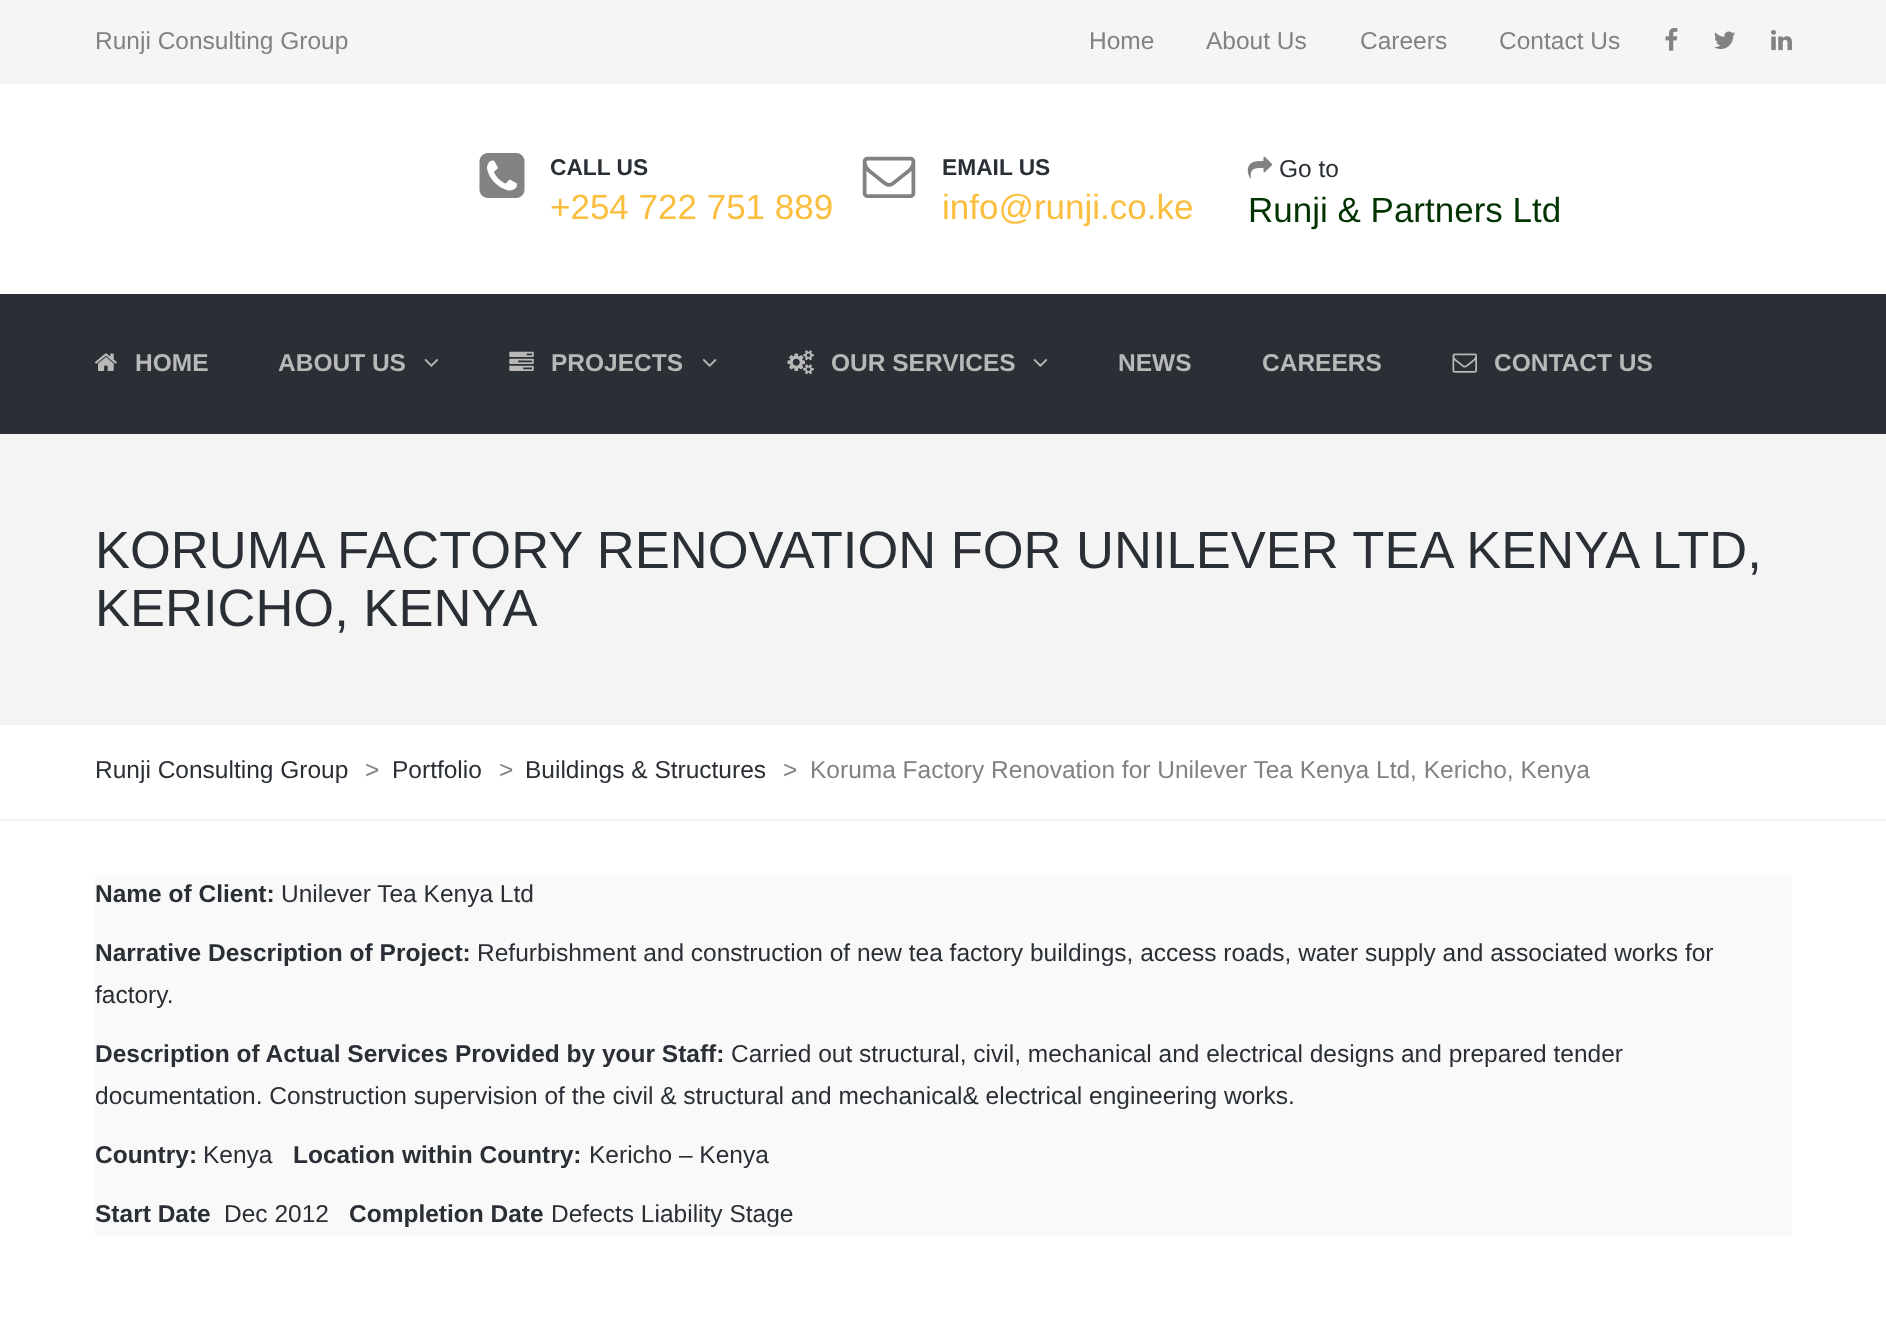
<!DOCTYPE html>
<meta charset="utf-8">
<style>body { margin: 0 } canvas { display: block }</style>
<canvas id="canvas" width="1886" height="1318"></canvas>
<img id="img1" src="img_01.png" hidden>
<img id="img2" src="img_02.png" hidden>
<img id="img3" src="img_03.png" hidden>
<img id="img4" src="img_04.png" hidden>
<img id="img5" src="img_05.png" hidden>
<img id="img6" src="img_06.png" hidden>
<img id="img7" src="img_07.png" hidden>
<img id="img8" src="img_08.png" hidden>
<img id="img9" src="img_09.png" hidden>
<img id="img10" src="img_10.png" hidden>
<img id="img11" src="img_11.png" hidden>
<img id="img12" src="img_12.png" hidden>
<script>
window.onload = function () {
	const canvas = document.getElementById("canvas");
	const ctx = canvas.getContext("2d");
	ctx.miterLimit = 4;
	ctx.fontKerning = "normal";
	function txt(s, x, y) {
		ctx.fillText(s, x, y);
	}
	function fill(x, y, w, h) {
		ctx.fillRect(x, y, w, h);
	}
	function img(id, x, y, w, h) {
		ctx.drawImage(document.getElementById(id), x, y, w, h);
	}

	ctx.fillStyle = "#FFFFFF";
	fill(0, 0, 1886, 1318);
	ctx.fillStyle = "#F5F5F5";
	fill(0, 0, 1886, 84);
	img("img1", 1665, 28, 13, 23);
	img("img2", 1714, 31, 22, 18);
	img("img3", 1771, 30, 21, 21);
	img("img4", 479, 153, 46, 45);
	img("img5", 862, 156, 54, 42);
	img("img6", 1247, 156, 26, 23);
	ctx.fillStyle = "#2A2F35";
	fill(0, 294, 1886, 140);
	img("img7", 94, 353, 23, 18);
	img("img8", 424, 359, 15, 8);
	img("img9", 509, 351, 25, 20);
	img("img10", 702, 359, 15, 8);
	img("img11", 787, 350, 27, 25);
	img("img8", 1033, 359, 15, 8);
	img("img12", 1452, 353, 25, 20);
	ctx.fillStyle = "#F4F4F4";
	fill(0, 434, 1886, 291);
	ctx.fillStyle = "#F5F5F5";
	fill(0, 819, 1886, 2);
	ctx.fillStyle = "#F9F9F9";
	fill(95, 875, 1697, 361);
	ctx.font = "24.5px Liberation Sans";
	ctx.fillStyle = "#828282";
	txt("Runji Consulting Group", 95, 49);
	txt("Home", 1089, 49);
	txt("About Us", 1206, 49);
	txt("Careers", 1360, 49);
	txt("Contact Us", 1499, 49);
	ctx.font = "bold 22.75px Liberation Sans";
	ctx.fillStyle = "#2A2F35";
	txt("CALL US", 550, 175);
	ctx.font = "35px Liberation Sans";
	ctx.fillStyle = "#FBBE3F";
	txt("+254 722 751 889", 550, 219);
	ctx.font = "bold 22.75px Liberation Sans";
	ctx.fillStyle = "#2A2F35";
	txt("EMAIL US", 942, 175);
	ctx.font = "35px Liberation Sans";
	ctx.fillStyle = "#FBBE3F";
	txt("info@runji.co.ke", 942, 219);
	ctx.font = "24.5px Liberation Sans";
	ctx.fillStyle = "#2A2F35";
	txt("Go to", 1279, 177);
	ctx.font = "35px Liberation Sans";
	ctx.fillStyle = "#003300";
	txt("Runji & Partners Ltd", 1248, 222);
	ctx.font = "bold 24.5px Liberation Sans";
	ctx.fillStyle = "#B8B8B8";
	txt("HOME", 135, 371);
	txt("ABOUT US", 278, 371);
	txt("PROJECTS", 551, 371);
	txt("OUR SERVICES", 831, 371);
	txt("NEWS", 1118, 371);
	txt("CAREERS", 1262, 371);
	txt("CONTACT US", 1494, 371);
	ctx.font = "52.5px Liberation Sans";
	ctx.fillStyle = "#2A2F35";
	txt("KORUMA FACTORY RENOVATION FOR UNILEVER TEA KENYA LTD,", 95, 568);
	txt("KERICHO, KENYA", 95, 626);
	ctx.font = "24.5px Liberation Sans";
	txt("Runji Consulting Group", 95, 778);
	ctx.fillStyle = "#828282";
	txt(">", 365, 778);
	ctx.fillStyle = "#2A2F35";
	txt("Portfolio", 392, 778);
	ctx.fillStyle = "#828282";
	txt(">", 499, 778);
	ctx.fillStyle = "#2A2F35";
	txt("Buildings & Structures", 525, 778);
	ctx.fillStyle = "#828282";
	txt(">", 783, 778);
	txt("Koruma Factory Renovation for Unilever Tea Kenya Ltd, Kericho, Kenya", 810, 778);
	ctx.font = "bold 24.5px Liberation Sans";
	ctx.fillStyle = "#2A2F35";
	txt("Name of Client:", 95, 902);
	ctx.font = "24.5px Liberation Sans";
	txt("Unilever Tea Kenya Ltd", 281, 902);
	ctx.font = "bold 24.5px Liberation Sans";
	txt("Narrative Description of Project:", 95, 961);
	ctx.font = "24.5px Liberation Sans";
	txt("Refurbishment and construction of new tea factory buildings, access roads, water supply and associated works for", 477, 961);
	txt("factory.", 95, 1003);
	ctx.font = "bold 24.5px Liberation Sans";
	txt("Description of Actual Services Provided by your Staff:", 95, 1062);
	ctx.font = "24.5px Liberation Sans";
	txt("Carried out structural, civil, mechanical and electrical designs and prepared tender", 731, 1062);
	txt("documentation. Construction supervision of the civil & structural and mechanical& electrical engineering works.", 95, 1104);
	ctx.font = "bold 24.5px Liberation Sans";
	txt("Country:", 95, 1163);
	ctx.font = "24.5px Liberation Sans";
	txt("Kenya", 203, 1163);
	ctx.font = "bold 24.5px Liberation Sans";
	txt("Location within Country:", 293, 1163);
	ctx.font = "24.5px Liberation Sans";
	txt("Kericho – Kenya", 589, 1163);
	ctx.font = "bold 24.5px Liberation Sans";
	txt("Start Date", 95, 1222);
	ctx.font = "24.5px Liberation Sans";
	txt("Dec 2012", 224, 1222);
	ctx.font = "bold 24.5px Liberation Sans";
	txt("Completion Date", 349, 1222);
	ctx.font = "24.5px Liberation Sans";
	txt("Defects Liability Stage", 551, 1222);
};
</script>
